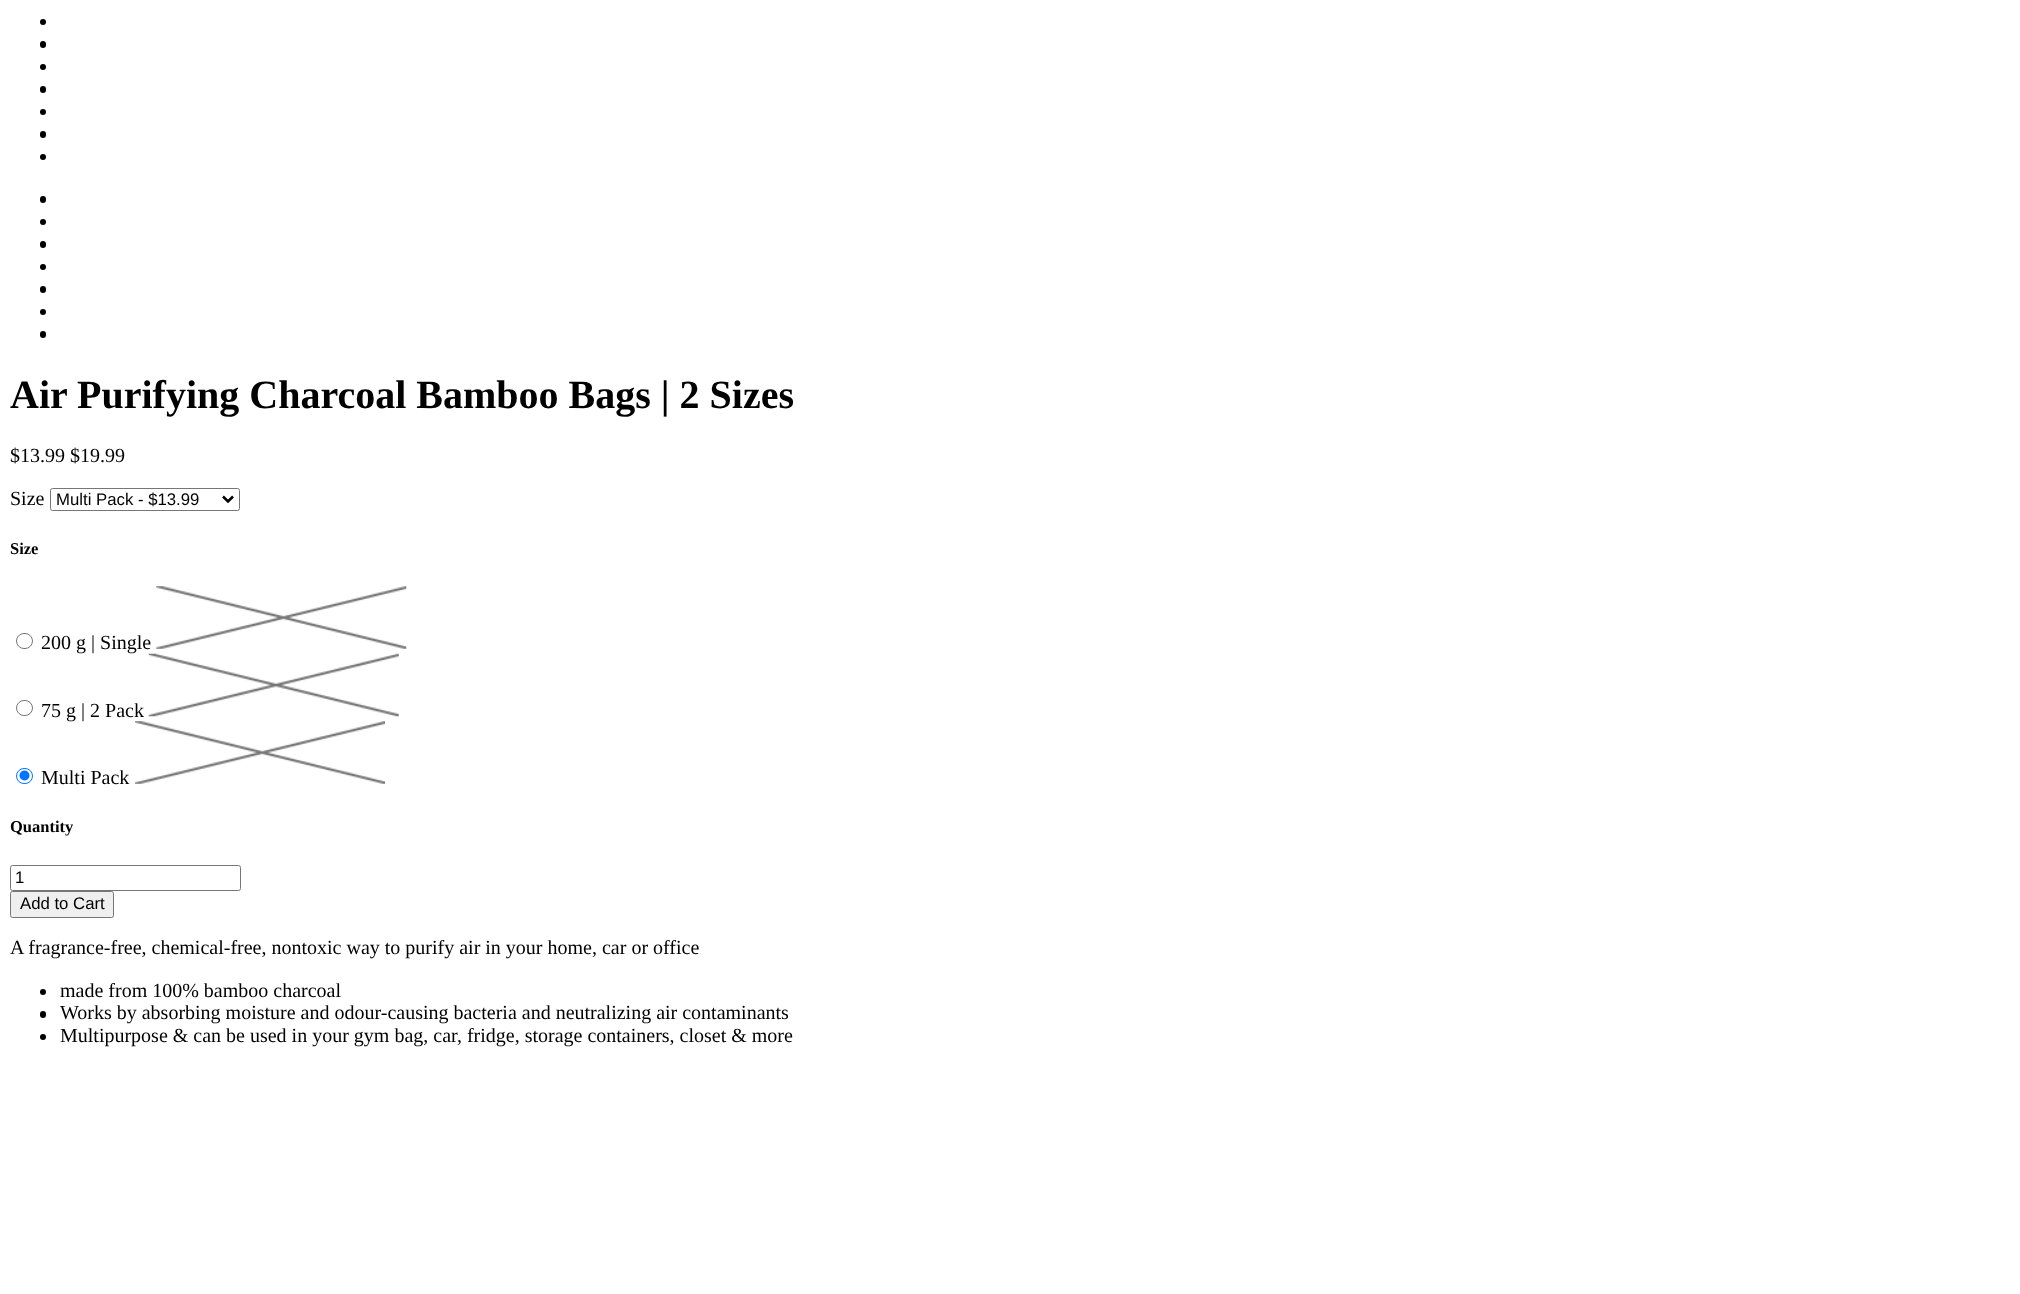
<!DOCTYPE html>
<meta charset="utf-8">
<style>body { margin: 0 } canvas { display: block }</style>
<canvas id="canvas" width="2020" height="1294"></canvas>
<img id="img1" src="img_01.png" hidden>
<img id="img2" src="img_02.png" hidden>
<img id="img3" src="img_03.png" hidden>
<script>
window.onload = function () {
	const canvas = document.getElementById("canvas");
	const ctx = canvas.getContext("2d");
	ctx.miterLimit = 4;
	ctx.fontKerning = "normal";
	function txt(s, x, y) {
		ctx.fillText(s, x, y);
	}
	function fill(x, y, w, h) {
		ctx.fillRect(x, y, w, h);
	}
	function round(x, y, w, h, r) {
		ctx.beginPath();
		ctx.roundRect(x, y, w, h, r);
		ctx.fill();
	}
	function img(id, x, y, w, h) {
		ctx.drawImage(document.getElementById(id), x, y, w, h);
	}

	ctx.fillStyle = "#FFFFFF";
	fill(0, 0, 2020, 1294);
	ctx.fillStyle = "#000000";
	ctx.beginPath();
	ctx.arc(43, 22, 3, 0, Math.PI * 2);
	ctx.fill();
	round(40, 41, 6, 7, 3);
	ctx.beginPath();
	ctx.arc(43, 67, 3, 0, Math.PI * 2);
	ctx.fill();
	round(40, 86, 6, 7, 3);
	ctx.beginPath();
	ctx.arc(43, 112, 3, 0, Math.PI * 2);
	ctx.fill();
	round(40, 131, 6, 7, 3);
	ctx.beginPath();
	ctx.arc(43, 157, 3, 0, Math.PI * 2);
	ctx.fill();
	round(40, 196, 6, 7, 3);
	ctx.beginPath();
	ctx.arc(43, 222, 3, 0, Math.PI * 2);
	ctx.fill();
	round(40, 241, 6, 7, 3);
	ctx.beginPath();
	ctx.arc(43, 267, 3, 0, Math.PI * 2);
	ctx.fill();
	round(40, 286, 6, 7, 3);
	ctx.beginPath();
	ctx.arc(43, 312, 3, 0, Math.PI * 2);
	ctx.fill();
	round(40, 331, 6, 7, 3);
	ctx.beginPath();
	ctx.roundRect(50.5, 488.5, 189, 22, 2);
	ctx.strokeStyle = "#767676";
	ctx.stroke();
	ctx.beginPath();
	ctx.moveTo(223, 496.5);
	ctx.lineTo(228, 501.5);
	ctx.lineTo(233, 496.5);
	ctx.strokeStyle = "#000000";
	ctx.lineWidth = 2.5;
	ctx.stroke();
	ctx.beginPath();
	ctx.roundRect(16.5, 633.5, 16, 15, 7.5);
	ctx.strokeStyle = "#767676";
	ctx.lineWidth = 1;
	ctx.stroke();
	img("img1", 156, 586, 251, 63);
	ctx.beginPath();
	ctx.roundRect(16.5, 700.5, 16, 15, 7.5);
	ctx.stroke();
	ctx.beginPath();
	ctx.roundRect(16.5, 768.5, 16, 15, 7.5);
	ctx.strokeStyle = "#0075FF";
	ctx.stroke();
	ctx.fillStyle = "#0075FF";
	ctx.beginPath();
	ctx.arc(24.5, 775.5, 5, 0, Math.PI * 2);
	ctx.fill();
	ctx.beginPath();
	ctx.roundRect(10.5, 865.5, 230, 25, 2);
	ctx.strokeStyle = "#767676";
	ctx.stroke();
	ctx.fillStyle = "#EFEFEF";
	ctx.beginPath();
	ctx.roundRect(10.5, 891.5, 103, 26, 2);
	ctx.fill();
	ctx.stroke();
	ctx.fillStyle = "#000000";
	ctx.beginPath();
	ctx.arc(43, 992, 3, 0, Math.PI * 2);
	ctx.fill();
	round(40, 1011, 6, 7, 3);
	ctx.beginPath();
	ctx.arc(43, 1037, 3, 0, Math.PI * 2);
	ctx.fill();
	ctx.font = "bold 40px Liberation Serif";
	txt("Air Purifying Charcoal Bamboo Bags | 2 Sizes", 10, 408);
	ctx.font = "20px Liberation Serif";
	txt("$13.99 $19.99", 10, 462);
	txt("Size", 10, 505);
	ctx.font = "16.75px Liberation Sans";
	txt("Multi Pack - $13.99", 56, 505);
	ctx.font = "bold 16.5px Liberation Serif";
	txt("Size", 10, 554);
	ctx.font = "20px Liberation Serif";
	txt("200 g | Single", 41, 649);
	txt("75 g | 2 Pack", 41, 717);
	img("img2", 148, 653, 251, 64);
	txt("Multi Pack", 41, 784);
	img("img3", 135, 721, 250, 63);
	ctx.font = "bold 16.5px Liberation Serif";
	txt("Quantity", 10, 832);
	ctx.font = "16.75px Liberation Sans";
	txt("1", 15, 883);
	txt("Add to Cart", 20, 909);
	ctx.font = "20px Liberation Serif";
	txt("A fragrance-free, chemical-free, nontoxic way to purify air in your home, car or office", 10, 954);
	txt("made from 100% bamboo charcoal", 60, 997);
	txt("Works by absorbing moisture and odour-causing bacteria and neutralizing air contaminants", 60, 1019);
	txt("Multipurpose & can be used in your gym bag, car, fridge, storage containers, closet & more", 60, 1042);
};
</script>
